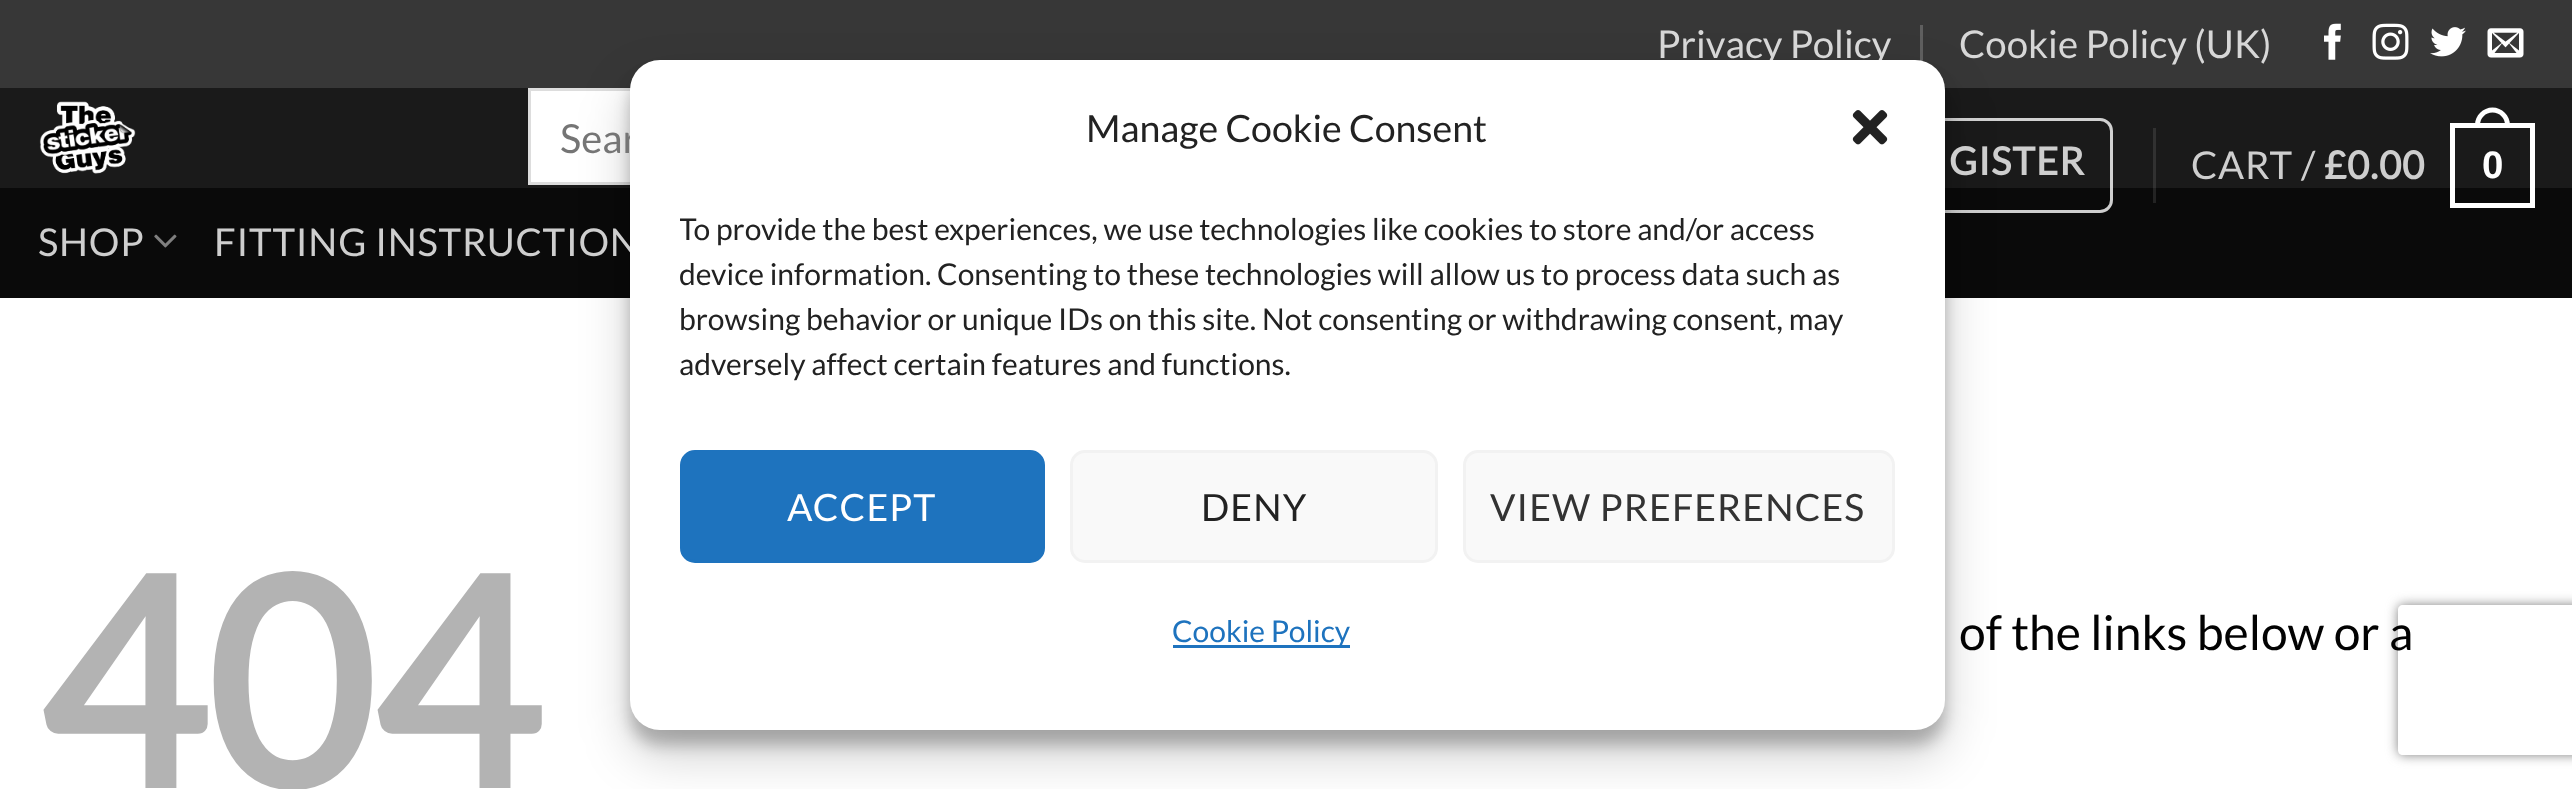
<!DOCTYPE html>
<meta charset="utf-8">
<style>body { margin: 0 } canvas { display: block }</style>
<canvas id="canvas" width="2572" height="789"></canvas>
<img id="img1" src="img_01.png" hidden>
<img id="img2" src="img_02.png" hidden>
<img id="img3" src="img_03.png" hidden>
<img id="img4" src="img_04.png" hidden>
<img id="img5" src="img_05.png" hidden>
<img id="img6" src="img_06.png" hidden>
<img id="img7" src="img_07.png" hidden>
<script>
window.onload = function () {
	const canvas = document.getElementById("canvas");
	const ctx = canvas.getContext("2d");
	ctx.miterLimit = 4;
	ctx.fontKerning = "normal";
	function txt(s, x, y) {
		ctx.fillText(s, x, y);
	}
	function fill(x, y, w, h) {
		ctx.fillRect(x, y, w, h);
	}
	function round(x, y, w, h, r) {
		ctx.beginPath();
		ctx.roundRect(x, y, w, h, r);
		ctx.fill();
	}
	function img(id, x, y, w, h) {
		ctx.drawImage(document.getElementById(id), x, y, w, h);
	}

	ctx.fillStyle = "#FFFFFF";
	fill(0, 0, 2572, 789);
	ctx.fillStyle = "#373737";
	fill(0, 0, 2572, 88);
	ctx.fillStyle = "#5F5F5F";
	fill(1920, 25, 3, 38);
	img("img1", 2324, 23, 17, 37);
	img("img2", 2372, 23, 37, 37);
	img("img3", 2430, 27, 36, 30);
	img("img4", 2487, 28, 37, 30);
	ctx.fillStyle = "#1A1A1A";
	fill(0, 88, 2572, 100);
	ctx.fillStyle = "#313131";
	fill(2153, 128, 3, 60);
	img("img5", 39, 101, 97, 73);
	ctx.fillStyle = "#FFFFFF";
	fill(531, 91, 99, 91);
	ctx.strokeStyle = "#DDDDDD";
	ctx.lineWidth = 3;
	ctx.strokeRect(529.5, 89.5, 502, 94);
	ctx.fillStyle = "#0A0A0A";
	fill(0, 188, 2572, 110);
	ctx.beginPath();
	ctx.roundRect(1719.5, 119.5, 392, 92, 11.5);
	ctx.strokeStyle = "rgba(255, 255, 255, 0.8)";
	ctx.stroke();
	ctx.strokeStyle = "#FFFFFF";
	ctx.lineWidth = 5;
	ctx.strokeRect(2452.5, 125.5, 80, 80);
	ctx.fillStyle = "#FFFFFF";
	ctx.beginPath();
	ctx.moveTo(2492.5, 107.5);
	ctx.bezierCurveTo(2502, 107.5, 2510, 115.5, 2510, 125);
	ctx.lineTo(2510, 127.5);
	ctx.lineTo(2475, 127.5);
	ctx.lineTo(2475, 125);
	ctx.bezierCurveTo(2475, 115.5, 2483, 107.5, 2492.5, 107.5);
	ctx.closePath();
	ctx.moveTo(2492.5, 112.5);
	ctx.bezierCurveTo(2499.5, 112.5, 2505, 118, 2505, 125);
	ctx.lineTo(2505, 127.5);
	ctx.lineTo(2480, 127.5);
	ctx.lineTo(2480, 125);
	ctx.bezierCurveTo(2480, 118, 2485.5, 112.5, 2492.5, 112.5);
	ctx.closePath();
	ctx.fill("evenodd");
	ctx.fillStyle = "#232323";
	fill(2153, 188, 3, 15);
	img("img6", 154, 234, 23, 14);
	ctx.fillStyle = "rgba(0, 0, 0, 0.23)";
	ctx.filter = "blur(7.5px)";
	ctx.beginPath();
	ctx.roundRect(630, 75, 1315, 670, 30);
	ctx.fill();
	ctx.filter = "none";
	ctx.fillStyle = "rgba(0, 0, 0, 0.19)";
	ctx.filter = "blur(25px)";
	ctx.beginPath();
	ctx.roundRect(630, 85, 1315, 670, 30);
	ctx.fill();
	ctx.filter = "none";
	ctx.save();
	ctx.beginPath();
	ctx.moveTo(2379, 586);
	ctx.lineTo(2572, 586);
	ctx.lineTo(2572, 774);
	ctx.lineTo(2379, 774);
	ctx.closePath();
	ctx.moveTo(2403, 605);
	ctx.lineTo(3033, 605);
	ctx.bezierCurveTo(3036, 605, 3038, 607, 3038, 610);
	ctx.lineTo(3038, 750);
	ctx.bezierCurveTo(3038, 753, 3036, 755, 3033, 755);
	ctx.lineTo(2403, 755);
	ctx.bezierCurveTo(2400, 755, 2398, 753, 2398, 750);
	ctx.lineTo(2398, 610);
	ctx.bezierCurveTo(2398, 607, 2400, 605, 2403, 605);
	ctx.closePath();
	ctx.clip("evenodd");
	ctx.fillStyle = "#808080";
	ctx.filter = "blur(6px)";
	ctx.beginPath();
	ctx.roundRect(2398, 605, 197, 150, 5);
	ctx.fill();
	ctx.filter = "none";
	ctx.restore();
	ctx.font = "38.4px Lato";
	ctx.fillStyle = "#D7D7D7";
	txt("Privacy Policy", 1657, 58);
	txt("Cookie Policy (UK)", 1959, 58);
	ctx.font = "40px Lato";
	ctx.fillStyle = "#757575";
	txt("Sear", 560, 153);
	ctx.letterSpacing = "1px";
	ctx.font = "bold 38.4px Lato";
	ctx.fillStyle = "#CECECE";
	txt("GISTER", 1949, 175);
	ctx.letterSpacing = "0.75px";
	ctx.font = "38.4px Lato";
	txt("CART /", 2191, 179);
	ctx.font = "bold 38.4px Lato";
	txt("£0.00", 2324, 179);
	ctx.font = "bold 38.4px Liberation Sans";
	ctx.fillStyle = "#FFFFFF";
	txt("0", 2482, 178);
	ctx.font = "38.4px Lato";
	ctx.fillStyle = "#CECECE";
	txt("SHOP", 38, 256);
	txt("FITTING INSTRUCTION", 214, 256);
	ctx.letterSpacing = "0px";
	ctx.font = "bold 288px Lato";
	ctx.fillStyle = "#B3B3B3";
	txt("404", 38, 788);
	ctx.font = "48px Lato";
	ctx.fillStyle = "#020202";
	txt("of the links below or a", 1959, 650);
	ctx.fillStyle = "#FFFFFF";
	round(630, 60, 1315, 670, 30);
	ctx.font = "37.5px Lato";
	ctx.fillStyle = "#222222";
	txt("Manage Cookie Consent", 1086, 142);
	img("img7", 1852, 110, 36, 35);
	ctx.save();
	ctx.beginPath();
	ctx.rect(680, 208, 1215, 192);
	ctx.clip();
	ctx.font = "30px Lato";
	txt("To provide the best experiences, we use technologies like cookies to store and/or access", 679, 240);
	txt("device information. Consenting to these technologies will allow us to process data such as", 679, 285);
	ctx.restore();
	ctx.font = "30px Lato";
	txt("browsing behavior or unique IDs on this site. Not consenting or withdrawing consent, may", 679, 330);
	txt("adversely affect certain features and functions.", 679, 375);
	ctx.fillStyle = "#1E73BE";
	ctx.beginPath();
	ctx.roundRect(681.5, 451.5, 362, 110, 13.5);
	ctx.fill();
	ctx.strokeStyle = "#1E73BE";
	ctx.lineWidth = 3;
	ctx.stroke();
	ctx.letterSpacing = "1.1px";
	ctx.font = "37.5px Lato";
	ctx.fillStyle = "#FFFFFF";
	txt("ACCEPT", 787, 521);
	ctx.fillStyle = "#F9F9F9";
	ctx.beginPath();
	ctx.roundRect(1071.5, 451.5, 365, 110, 13.5);
	ctx.fill();
	ctx.strokeStyle = "#F2F2F2";
	ctx.stroke();
	ctx.fillStyle = "#222222";
	txt("DENY", 1201, 521);
	ctx.fillStyle = "#F9F9F9";
	ctx.beginPath();
	ctx.roundRect(1464.5, 451.5, 429, 110, 13.5);
	ctx.fill();
	ctx.stroke();
	ctx.fillStyle = "#333333";
	txt("VIEW PREFERENCES", 1490, 521);
	ctx.fillStyle = "#1E73BE";
	fill(1173, 645, 177, 3);
	ctx.letterSpacing = "0px";
	ctx.font = "30px Lato";
	txt("Cookie Policy", 1172, 642);
};
</script>
